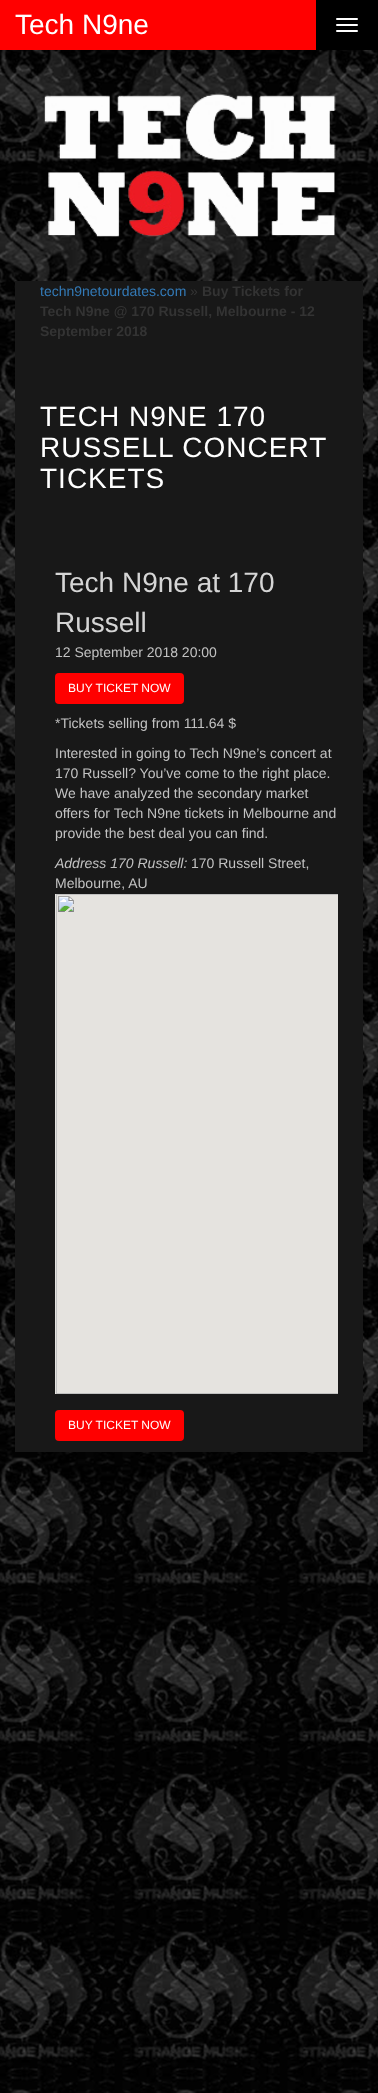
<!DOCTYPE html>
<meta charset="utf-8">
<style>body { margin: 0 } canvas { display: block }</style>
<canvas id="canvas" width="378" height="2093"></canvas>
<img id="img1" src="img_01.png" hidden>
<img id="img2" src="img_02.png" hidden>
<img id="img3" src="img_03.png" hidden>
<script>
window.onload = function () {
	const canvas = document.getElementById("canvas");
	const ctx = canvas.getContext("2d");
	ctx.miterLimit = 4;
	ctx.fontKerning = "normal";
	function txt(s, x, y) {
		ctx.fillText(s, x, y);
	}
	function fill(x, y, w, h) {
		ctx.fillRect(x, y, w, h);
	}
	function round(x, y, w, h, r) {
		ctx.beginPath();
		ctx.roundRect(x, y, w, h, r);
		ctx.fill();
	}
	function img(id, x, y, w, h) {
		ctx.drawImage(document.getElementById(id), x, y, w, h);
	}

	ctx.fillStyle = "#FFFFFF";
	fill(0, 0, 378, 2093);
	ctx.fillStyle = "#FF0000";
	fill(0, 0, 316, 50);
	ctx.fillStyle = "#000000";
	fill(316, 0, 62, 50);
	ctx.fillStyle = "#FFFFFF";
	round(336, 18, 22, 2, 1);
	round(336, 24, 22, 2, 1);
	round(336, 30, 22, 2, 1);
	img("img1", 0, 50, 378, 2043);
	img("img2", 44, 93, 292, 144);
	ctx.fillStyle = "#181818";
	fill(15, 281, 348, 1171);
	ctx.fillStyle = "#FF0000";
	round(55, 673, 129, 31, 4);
	img("img3", 55, 894, 283, 500);
	round(55, 1410, 129, 31, 4);
	ctx.font = "28px Liberation Sans";
	ctx.fillStyle = "#FFFFFF";
	txt("Tech N9ne", 15, 34);
	ctx.font = "14px Liberation Sans";
	ctx.fillStyle = "#337AB7";
	txt("techn9netourdates.com", 40, 296);
	ctx.fillStyle = "#333333";
	txt("»", 190, 296);
	ctx.font = "bold 14px Liberation Sans";
	txt("Buy Tickets for", 202, 296);
	txt("Tech N9ne @ 170 Russell, Melbourne - 12", 40, 316);
	txt("September 2018", 40, 336);
	ctx.letterSpacing = "1px";
	ctx.font = "28px Liberation Sans";
	ctx.fillStyle = "#FFFFFF";
	txt("TECH N9NE 170", 40, 426);
	txt("RUSSELL CONCERT", 40, 457);
	txt("TICKETS", 40, 488);
	ctx.letterSpacing = "0px";
	ctx.fillStyle = "#D5D5D5";
	txt("Tech N9ne at 170", 55, 592);
	txt("Russell", 55, 632);
	ctx.font = "14px Liberation Sans";
	ctx.fillStyle = "#C2C2C2";
	txt("12 September 2018 20:00", 55, 657);
	ctx.font = "12px Liberation Sans";
	ctx.fillStyle = "#FFFFFF";
	txt("BUY TICKET NOW", 68, 692);
	ctx.font = "14px Liberation Sans";
	ctx.fillStyle = "#C2C2C2";
	txt("*Tickets selling from 111.64 $", 55, 728);
	txt("Interested in going to Tech N9ne’s concert at", 55, 758);
	txt("170 Russell? You’ve come to the right place.", 55, 778);
	txt("We have analyzed the secondary market", 55, 798);
	txt("offers for Tech N9ne tickets in Melbourne and", 55, 818);
	txt("provide the best deal you can find.", 55, 838);
	ctx.font = "italic 14px Liberation Sans";
	txt("Address 170 Russell:", 55, 868);
	ctx.font = "14px Liberation Sans";
	txt("170 Russell Street,", 191, 868);
	txt("Melbourne, AU", 55, 888);
	ctx.font = "12px Liberation Sans";
	ctx.fillStyle = "#FFFFFF";
	txt("BUY TICKET NOW", 68, 1429);
};
</script>
